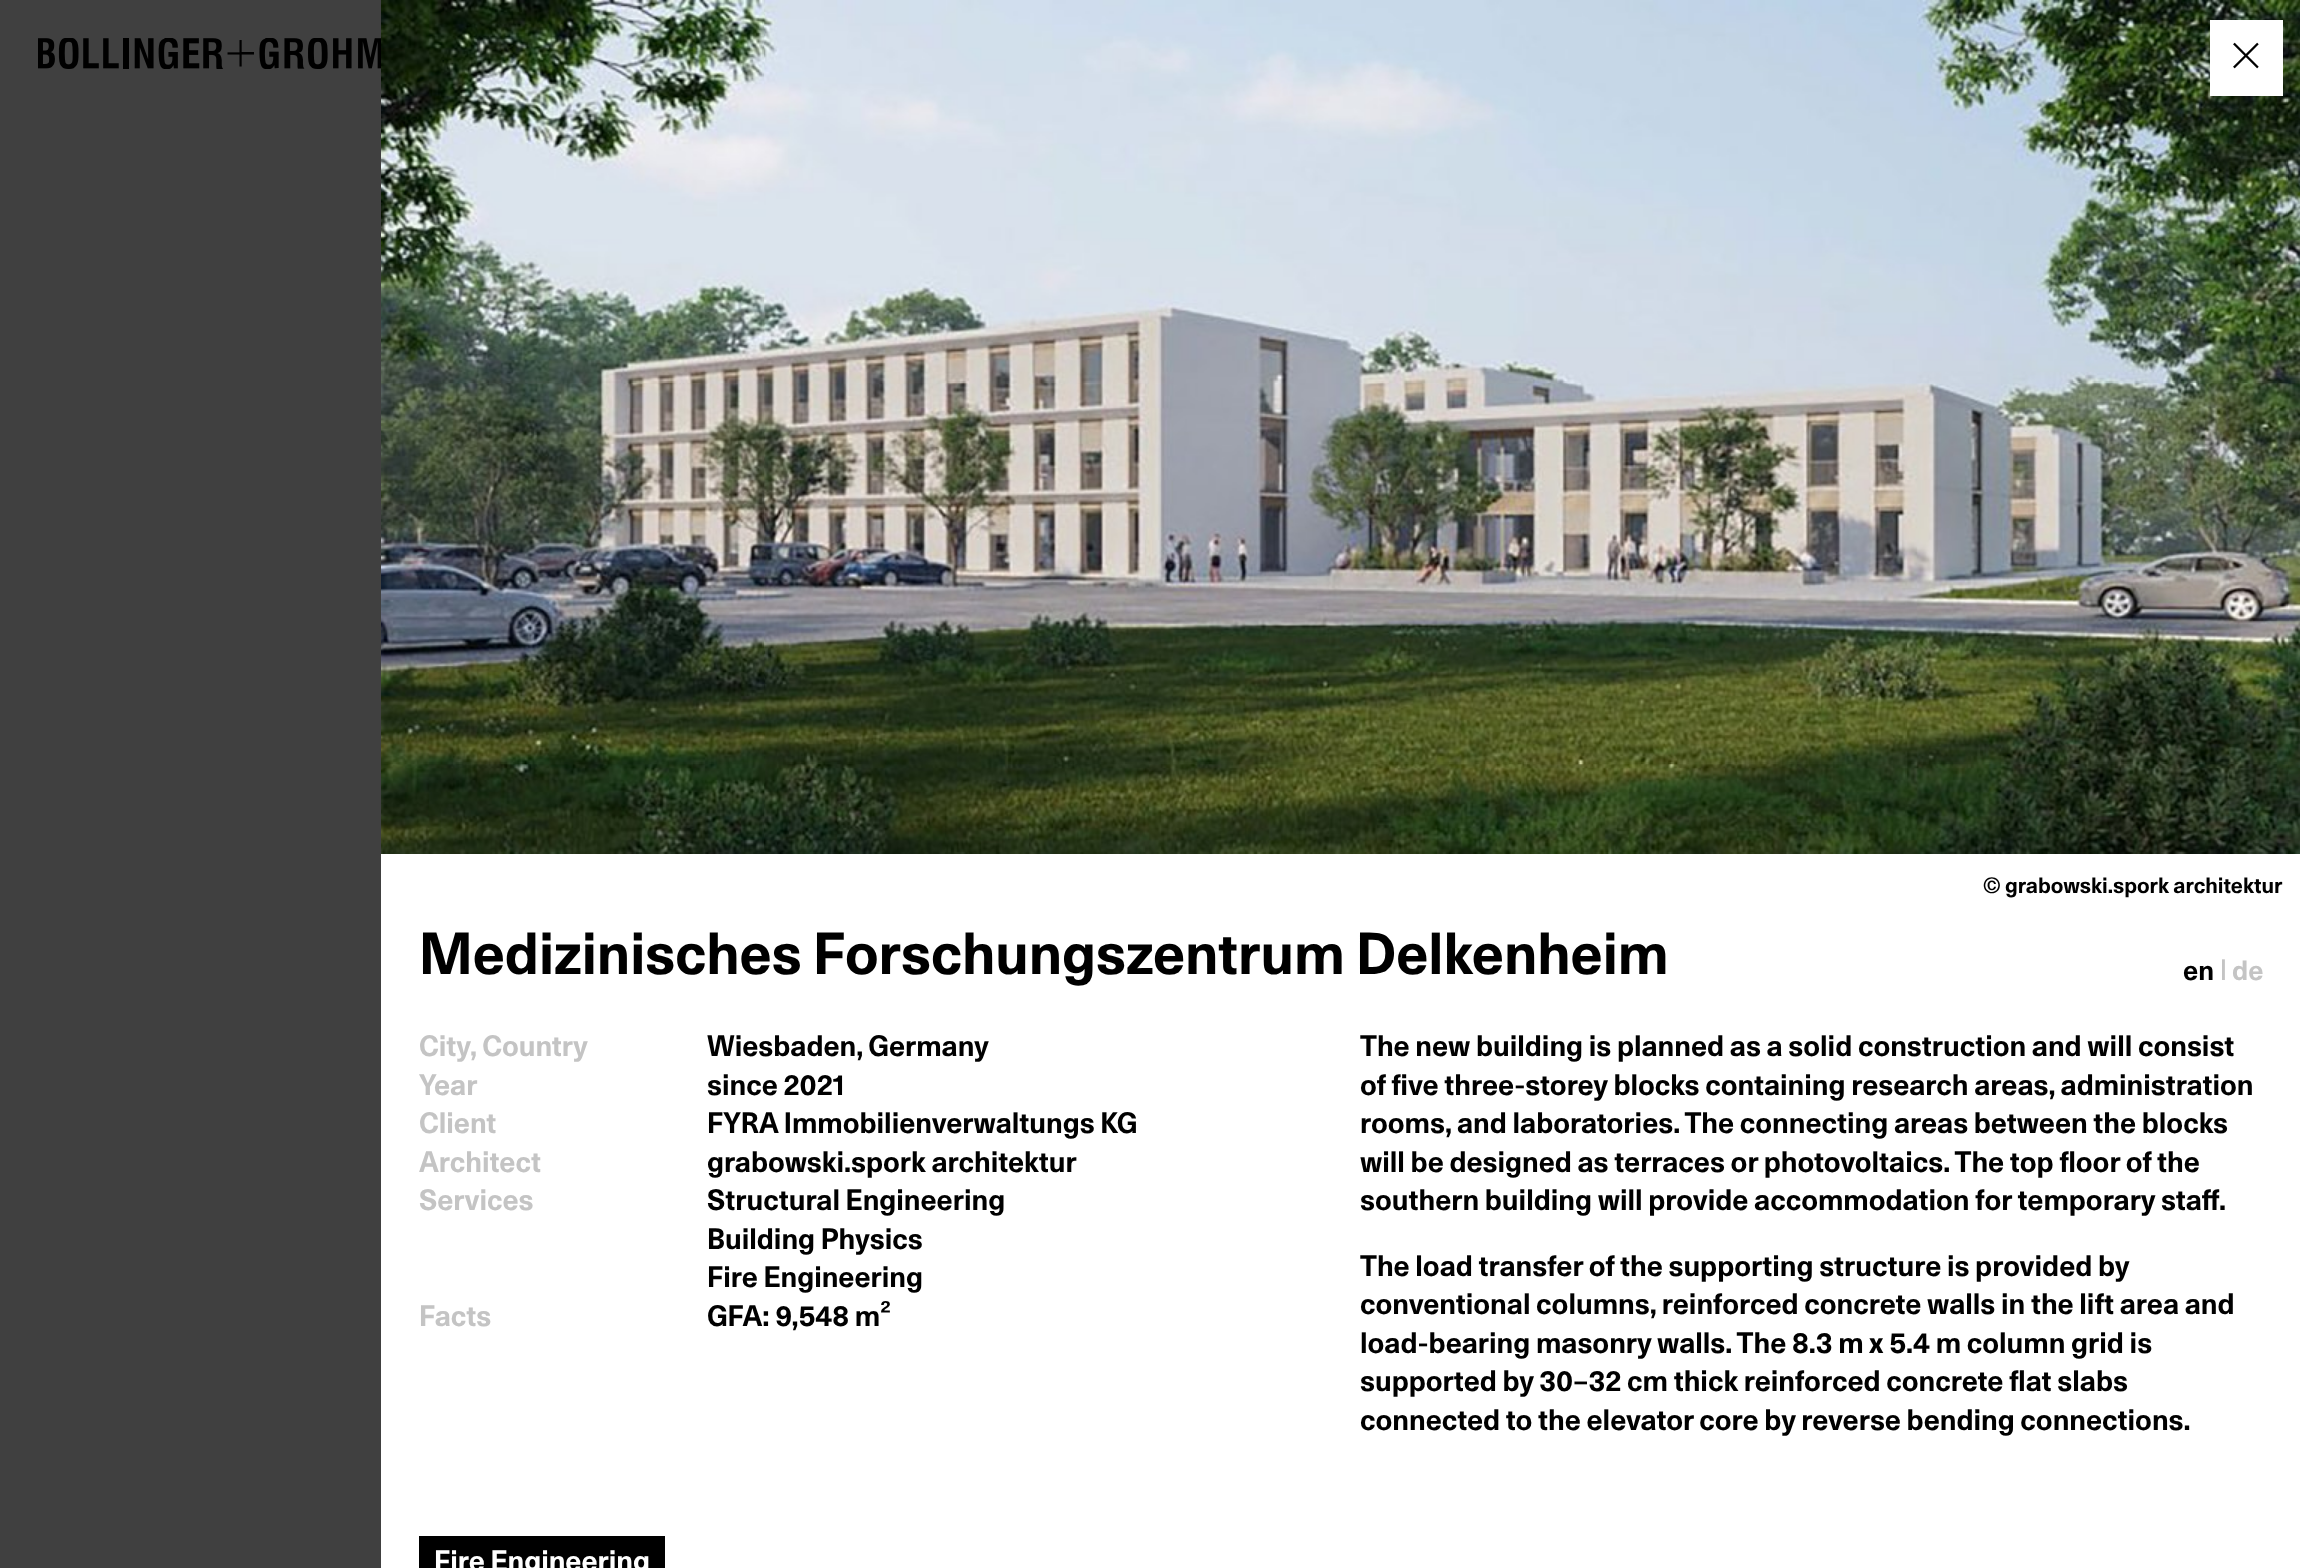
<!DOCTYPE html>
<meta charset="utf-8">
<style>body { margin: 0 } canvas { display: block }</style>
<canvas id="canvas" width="2300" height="1568"></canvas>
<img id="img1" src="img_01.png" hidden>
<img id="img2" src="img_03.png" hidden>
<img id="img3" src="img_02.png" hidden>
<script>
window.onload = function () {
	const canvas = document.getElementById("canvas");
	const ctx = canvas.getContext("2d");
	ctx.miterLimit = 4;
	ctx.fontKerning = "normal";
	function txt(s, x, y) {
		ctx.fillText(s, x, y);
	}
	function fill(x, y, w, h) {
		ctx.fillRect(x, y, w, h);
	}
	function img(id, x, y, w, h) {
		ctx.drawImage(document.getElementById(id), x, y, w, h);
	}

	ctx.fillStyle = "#404040";
	fill(0, 0, 2300, 1568);
	img("img1", 38, 38, 343, 31);
	ctx.fillStyle = "#FFFFFF";
	fill(381, 854, 1919, 714);
	img("img2", 381, 0, 1919, 854);
	fill(2210, 20, 73, 76);
	img("img3", 2233, 42, 26, 27);
	ctx.fillStyle = "#000000";
	fill(419, 1536, 246, 32);
	ctx.font = "bold 21.4px 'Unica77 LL'";
	txt("© grabowski.spork architektur", 1983, 893);
	ctx.font = "bold 57px 'Unica77 LL'";
	txt("Medizinisches Forschungszentrum Delkenheim", 419, 974);
	ctx.font = "bold 27px 'Unica77 LL'";
	txt("en", 2183, 980);
	ctx.font = "bold 28.5px 'Unica77 LL'";
	ctx.fillStyle = "#C4C4C4";
	txt("|", 2220, 980);
	ctx.font = "bold 27px 'Unica77 LL'";
	txt("de", 2232, 980);
	ctx.font = "bold 28.5px 'Unica77 LL'";
	txt("City, Country", 419, 1056);
	ctx.fillStyle = "#000000";
	txt("Wiesbaden, Germany", 707, 1056);
	ctx.fillStyle = "#C4C4C4";
	txt("Year", 419, 1095);
	ctx.fillStyle = "#000000";
	txt("since 2021", 707, 1095);
	ctx.fillStyle = "#C4C4C4";
	txt("Client", 419, 1133);
	ctx.fillStyle = "#000000";
	txt("FYRA Immobilienverwaltungs KG", 707, 1133);
	ctx.fillStyle = "#C4C4C4";
	txt("Architect", 419, 1172);
	ctx.fillStyle = "#000000";
	txt("grabowski.spork architektur", 707, 1172);
	ctx.fillStyle = "#C4C4C4";
	txt("Services", 419, 1210);
	ctx.fillStyle = "#000000";
	txt("Structural Engineering", 707, 1210);
	txt("Building Physics", 707, 1249);
	txt("Fire Engineering", 707, 1287);
	ctx.fillStyle = "#C4C4C4";
	txt("Facts", 419, 1326);
	ctx.fillStyle = "#000000";
	txt("GFA: 9,548 m²", 707, 1326);
	txt("The new building is planned as a solid construction and will consist", 1360, 1056);
	txt("of five three-storey blocks containing research areas, administration", 1360, 1095);
	txt("rooms, and laboratories. The connecting areas between the blocks", 1360, 1133);
	txt("will be designed as terraces or photovoltaics. The top floor of the", 1360, 1172);
	txt("southern building will provide accommodation for temporary staff.", 1360, 1210);
	txt("The load transfer of the supporting structure is provided by", 1360, 1276);
	txt("conventional columns, reinforced concrete walls in the lift area and", 1360, 1314);
	txt("load-bearing masonry walls. The 8.3 m x 5.4 m column grid is", 1360, 1353);
	txt("supported by 30–32 cm thick reinforced concrete flat slabs", 1360, 1391);
	txt("connected to the elevator core by reverse bending connections.", 1360, 1430);
	ctx.fillStyle = "#FFFFFF";
	txt("Fire Engineering", 434, 1571);
};
</script>
